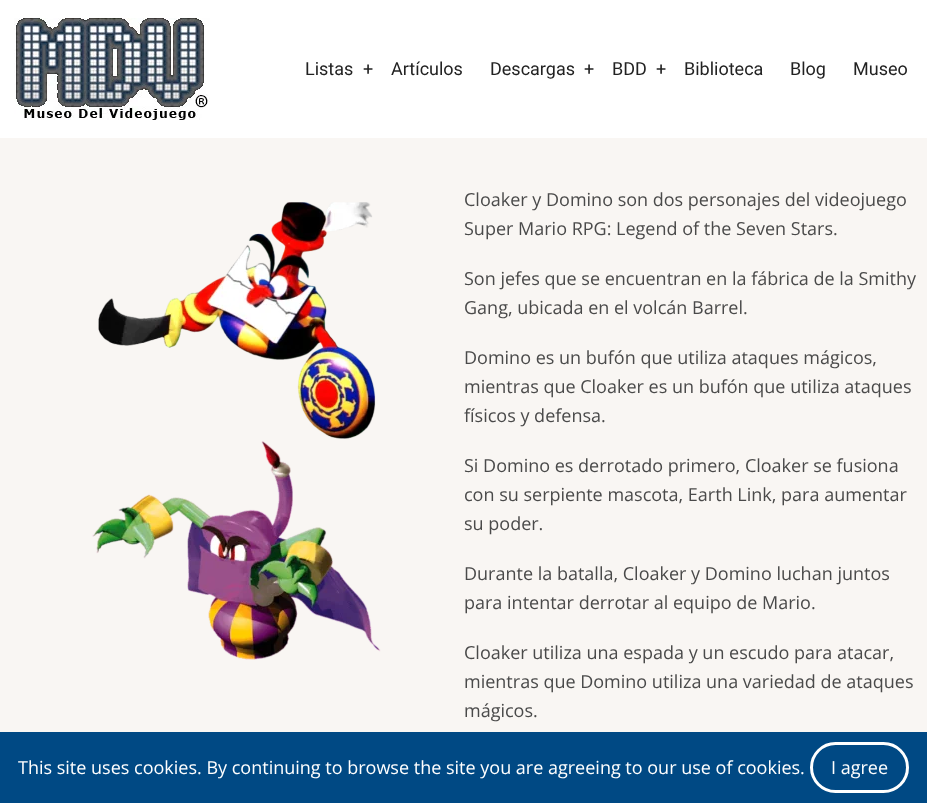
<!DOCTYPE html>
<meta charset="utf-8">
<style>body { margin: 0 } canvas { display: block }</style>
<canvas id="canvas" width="927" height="803"></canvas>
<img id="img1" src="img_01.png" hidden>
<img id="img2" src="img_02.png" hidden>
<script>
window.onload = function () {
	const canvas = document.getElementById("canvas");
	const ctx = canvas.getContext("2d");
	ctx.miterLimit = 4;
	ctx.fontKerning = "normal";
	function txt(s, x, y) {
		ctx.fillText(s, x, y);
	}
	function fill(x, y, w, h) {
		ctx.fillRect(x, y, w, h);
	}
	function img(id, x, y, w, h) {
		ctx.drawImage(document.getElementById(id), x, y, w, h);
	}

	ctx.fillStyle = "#F9F6F3";
	fill(0, 0, 927, 803);
	ctx.fillStyle = "#FFFFFF";
	fill(0, 0, 927, 138);
	img("img1", 14, 18, 196, 102);
	img("img2", 92, 202, 289, 458);
	ctx.fillStyle = "#004984";
	fill(0, 732, 927, 71);
	ctx.beginPath();
	ctx.roundRect(811.5, 743.5, 96, 48, 24);
	ctx.strokeStyle = "#FFFFFF";
	ctx.lineWidth = 3;
	ctx.stroke();
	ctx.font = "18px Roboto";
	ctx.fillStyle = "#222222";
	txt("Listas", 305, 75);
	txt("+", 363, 75);
	txt("Artículos", 391, 75);
	txt("Descargas", 490, 75);
	txt("+", 584, 75);
	txt("BDD", 612, 75);
	txt("+", 656, 75);
	txt("Biblioteca", 684, 75);
	txt("Blog", 790, 75);
	txt("Museo", 853, 75);
	ctx.font = "18px Open Sans";
	ctx.fillStyle = "#4A4A4A";
	txt("Cloaker y Domino son dos personajes del videojuego", 464, 206);
	txt("Super Mario RPG: Legend of the Seven Stars.", 464, 235);
	txt("Son jefes que se encuentran en la fábrica de la Smithy", 464, 285);
	txt("Gang, ubicada en el volcán Barrel.", 464, 314);
	txt("Domino es un bufón que utiliza ataques mágicos,", 464, 364);
	txt("mientras que Cloaker es un bufón que utiliza ataques", 464, 393);
	txt("físicos y defensa.", 464, 422);
	txt("Si Domino es derrotado primero, Cloaker se fusiona", 464, 472);
	txt("con su serpiente mascota, Earth Link, para aumentar", 464, 501);
	txt("su poder.", 464, 530);
	txt("Durante la batalla, Cloaker y Domino luchan juntos", 464, 580);
	txt("para intentar derrotar al equipo de Mario.", 464, 609);
	txt("Cloaker utiliza una espada y un escudo para atacar,", 464, 659);
	txt("mientras que Domino utiliza una variedad de ataques", 464, 688);
	txt("mágicos.", 464, 717);
	ctx.fillStyle = "#FFFFFF";
	txt("This site uses cookies. By continuing to browse the site you are agreeing to our use of cookies.", 18, 774);
	txt("I agree", 831, 774);
};
</script>
